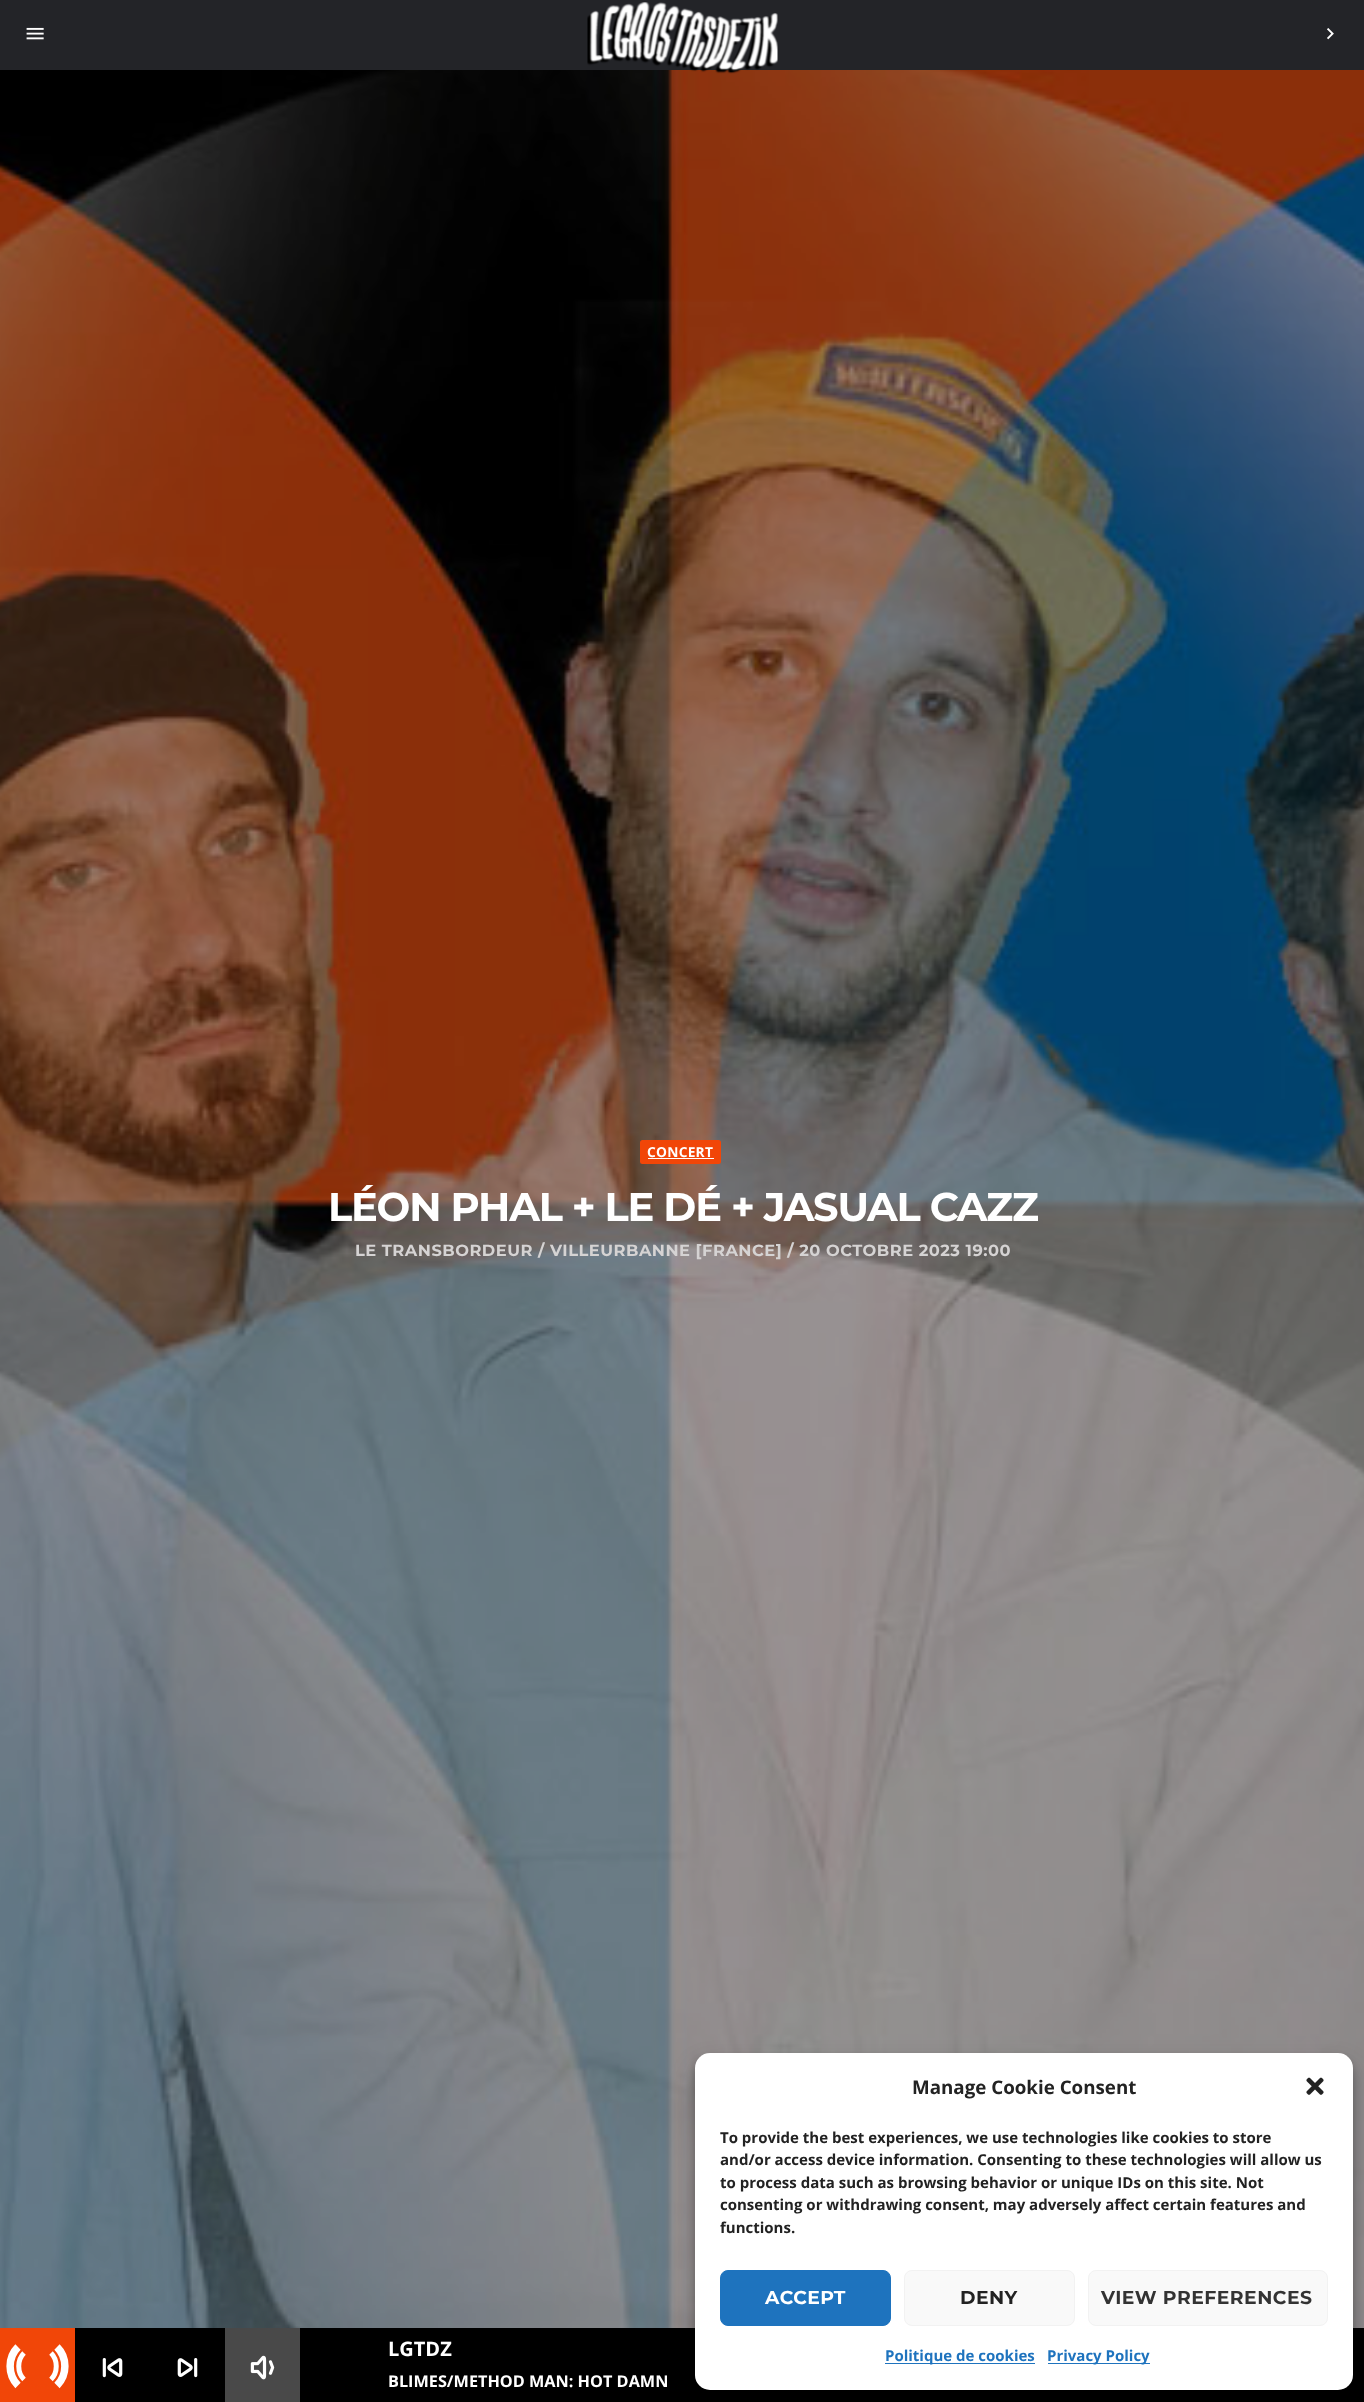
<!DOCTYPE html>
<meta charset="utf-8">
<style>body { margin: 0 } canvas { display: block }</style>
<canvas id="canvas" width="1364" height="2402"></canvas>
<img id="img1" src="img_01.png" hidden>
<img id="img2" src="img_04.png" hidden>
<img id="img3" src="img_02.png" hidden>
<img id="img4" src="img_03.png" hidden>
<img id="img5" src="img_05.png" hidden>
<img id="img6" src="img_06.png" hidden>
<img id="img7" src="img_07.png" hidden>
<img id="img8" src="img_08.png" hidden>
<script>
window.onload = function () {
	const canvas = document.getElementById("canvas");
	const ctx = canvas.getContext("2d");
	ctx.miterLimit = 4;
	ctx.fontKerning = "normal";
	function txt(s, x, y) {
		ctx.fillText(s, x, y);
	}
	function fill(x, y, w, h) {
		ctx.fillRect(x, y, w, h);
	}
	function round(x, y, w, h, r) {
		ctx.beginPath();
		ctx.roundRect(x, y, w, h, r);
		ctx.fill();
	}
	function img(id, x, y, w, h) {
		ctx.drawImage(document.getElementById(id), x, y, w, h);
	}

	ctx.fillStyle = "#FFFFFF";
	fill(0, 0, 1364, 2402);
	ctx.fillStyle = "#232428";
	fill(0, 0, 1364, 70);
	img("img1", 26, 27, 18, 13);
	img("img2", 0, 70, 1364, 2258);
	img("img3", 587, 2, 191, 72);
	img("img4", 1327, 28, 7, 12);
	ctx.fillStyle = "#F14608";
	round(640, 1140, 81, 24, 2.5);
	ctx.fillStyle = "#FFFFFF";
	fill(648, 1158, 66, 1);
	ctx.fillStyle = "#000000";
	fill(75, 2328, 1289, 74);
	ctx.fillStyle = "#F14608";
	fill(0, 2328, 75, 74);
	ctx.beginPath();
	ctx.moveTo(51, 2353);
	ctx.bezierCurveTo(58, 2360, 58, 2372.5, 51, 2379.5);
	ctx.moveTo(24, 2379.5);
	ctx.bezierCurveTo(17, 2372.5, 17, 2360, 24, 2353);
	ctx.strokeStyle = "#FFFFFF";
	ctx.lineWidth = 5;
	ctx.stroke();
	ctx.beginPath();
	ctx.moveTo(57, 2347);
	ctx.bezierCurveTo(67.5, 2357.5, 67.5, 2375, 57, 2385.5);
	ctx.moveTo(18, 2385.5);
	ctx.bezierCurveTo(7.5, 2375, 7.5, 2357.5, 18, 2347);
	ctx.lineWidth = 7.5;
	ctx.stroke();
	img("img5", 102, 2358, 21, 20);
	img("img6", 177, 2358, 21, 20);
	ctx.fillStyle = "#494949";
	fill(225, 2328, 75, 74);
	img("img7", 250, 2355, 25, 25);
	ctx.fillStyle = "rgba(0, 0, 0, 0.23)";
	ctx.filter = "blur(4px)";
	ctx.beginPath();
	ctx.roundRect(695, 2060, 658, 338, 15);
	ctx.fill();
	ctx.filter = "none";
	ctx.fillStyle = "rgba(0, 0, 0, 0.19)";
	ctx.filter = "blur(12.5px)";
	ctx.beginPath();
	ctx.roundRect(695, 2065, 658, 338, 15);
	ctx.fill();
	ctx.filter = "none";
	ctx.fillStyle = "#FFFFFF";
	round(695, 2053, 658, 337, 15);
	img("img8", 1306, 2077, 18, 18);
	ctx.fillStyle = "#1E73BE";
	ctx.beginPath();
	ctx.roundRect(720.5, 2270.5, 170, 55, 7.5);
	ctx.fill();
	ctx.strokeStyle = "#1E73BE";
	ctx.lineWidth = 1;
	ctx.stroke();
	ctx.fillStyle = "#F9F9F9";
	ctx.beginPath();
	ctx.roundRect(904.5, 2270.5, 170, 55, 7.5);
	ctx.fill();
	ctx.strokeStyle = "#F2F2F2";
	ctx.stroke();
	ctx.beginPath();
	ctx.roundRect(1088.5, 2270.5, 239, 55, 7.5);
	ctx.fill();
	ctx.stroke();
	ctx.fillStyle = "#1E73BE";
	fill(885, 2363, 150, 1);
	fill(1048, 2363, 102, 1);
	ctx.letterSpacing = "0.25px";
	ctx.font = "bold 13.75px Open Sans";
	ctx.fillStyle = "#FFFFFF";
	txt("CONCERT", 647, 1157);
	ctx.letterSpacing = "-1.2px";
	ctx.font = "bold 40px Montserrat";
	txt("LÉON PHAL + LE DÉ + JASUAL CAZZ", 328, 1221);
	ctx.letterSpacing = "0.5px";
	ctx.font = "bold 16.25px Montserrat";
	ctx.fillStyle = "#D5D3D3";
	txt("LE TRANSBORDEUR / VILLEURBANNE [FRANCE] / 20 OCTOBRE 2023 19:00", 355, 1256);
	ctx.letterSpacing = "0px";
	ctx.font = "bold 20px Open Sans";
	ctx.fillStyle = "#FFFFFF";
	txt("LGTDZ", 388, 2356);
	ctx.font = "bold 16.25px Open Sans";
	txt("BLIMES/METHOD MAN: HOT DAMN", 388, 2387);
	ctx.font = "bold 18.75px Open Sans";
	ctx.fillStyle = "#222222";
	txt("Manage Cookie Consent", 912, 2094);
	ctx.font = "bold 15px Open Sans";
	txt("To provide the best experiences, we use technologies like cookies to store", 720, 2143);
	txt("and/or access device information. Consenting to these technologies will allow us", 720, 2165);
	txt("to process data such as browsing behavior or unique IDs on this site. Not", 720, 2188);
	txt("consenting or withdrawing consent, may adversely affect certain features and", 720, 2210);
	txt("functions.", 720, 2233);
	ctx.letterSpacing = "0.5px";
	ctx.font = "bold 18.75px Montserrat";
	ctx.fillStyle = "#FFFFFF";
	txt("ACCEPT", 765, 2304);
	ctx.fillStyle = "#222222";
	txt("DENY", 960, 2304);
	ctx.fillStyle = "#333333";
	txt("VIEW PREFERENCES", 1101, 2304);
	ctx.letterSpacing = "0px";
	ctx.font = "bold 15px Open Sans";
	ctx.fillStyle = "#1E73BE";
	txt("Politique de cookies", 885, 2361);
	txt("Privacy Policy", 1047, 2361);
};
</script>
